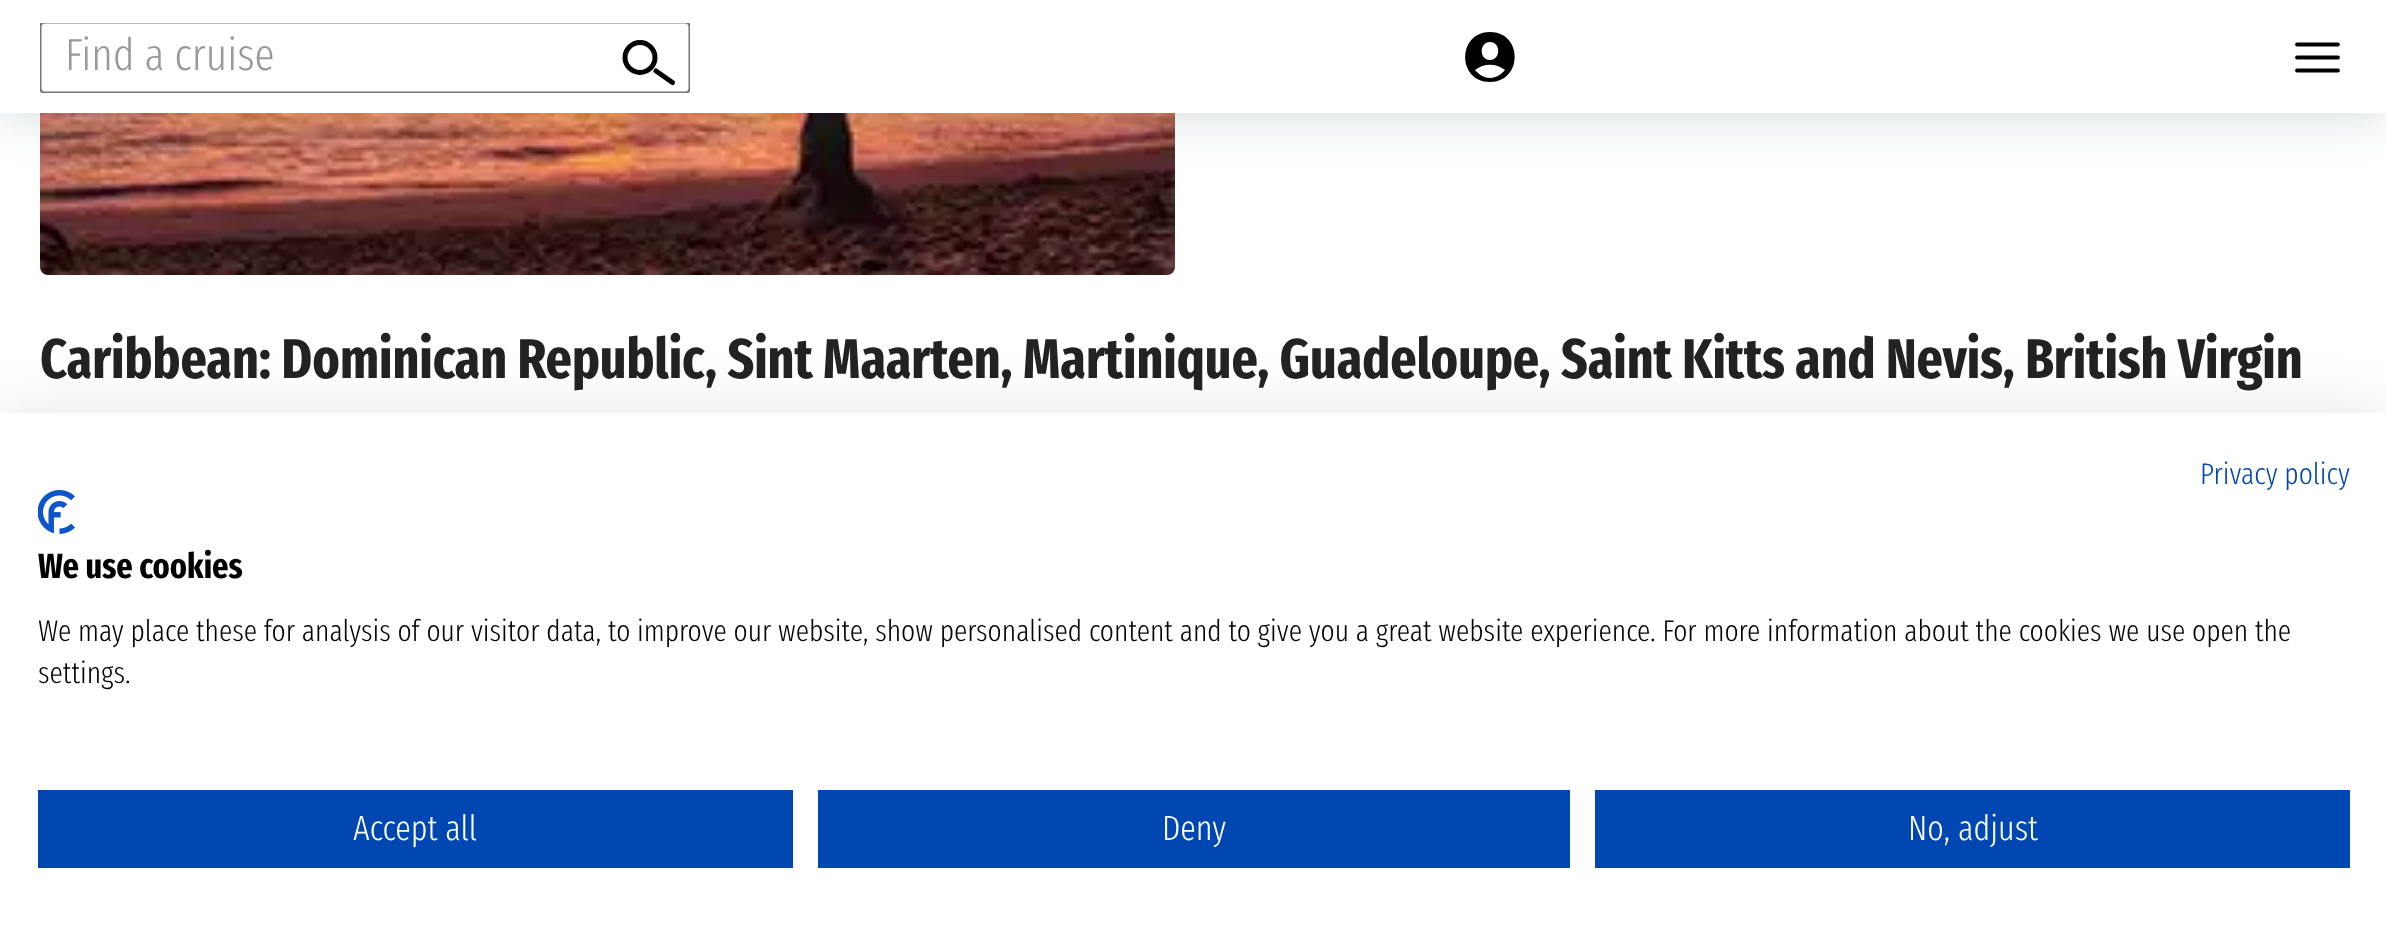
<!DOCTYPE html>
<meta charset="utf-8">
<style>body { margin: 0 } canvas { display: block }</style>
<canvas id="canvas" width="2386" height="935"></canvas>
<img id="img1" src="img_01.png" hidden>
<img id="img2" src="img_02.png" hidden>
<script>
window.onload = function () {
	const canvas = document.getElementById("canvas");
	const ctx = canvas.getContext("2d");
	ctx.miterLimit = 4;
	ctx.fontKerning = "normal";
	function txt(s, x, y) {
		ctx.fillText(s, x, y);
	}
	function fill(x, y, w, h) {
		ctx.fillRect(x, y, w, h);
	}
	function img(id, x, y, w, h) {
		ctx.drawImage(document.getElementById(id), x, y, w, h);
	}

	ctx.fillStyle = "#FFFFFF";
	fill(0, 0, 2386, 935);
	img("img1", 40, 113, 1135, 162);
	ctx.fillStyle = "rgba(0, 60, 60, 0.2)";
	ctx.filter = "blur(25px)";
	ctx.beginPath();
	ctx.rect(0, 0, 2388, 113);
	ctx.fill();
	ctx.filter = "none";
	ctx.fillStyle = "#FFFFFF";
	fill(0, 0, 2386, 113);
	ctx.save();
	ctx.beginPath();
	ctx.rect(40, 23, 650, 70);
	ctx.clip();
	ctx.beginPath();
	ctx.roundRect(40.25, 22.25, 649.5, 70.5, 4.75);
	ctx.strokeStyle = "#777777";
	ctx.lineWidth = 2.5;
	ctx.stroke();
	ctx.restore();
	ctx.beginPath();
	ctx.arc(640, 57.5, 15, 0, Math.PI * 2);
	ctx.strokeStyle = "#000000";
	ctx.lineWidth = 5;
	ctx.stroke();
	ctx.beginPath();
	ctx.moveTo(656, 71);
	ctx.lineTo(672.5, 82.5);
	ctx.lineCap = "round";
	ctx.stroke();
	ctx.fillStyle = "#000000";
	ctx.beginPath();
	ctx.moveTo(1490, 32);
	ctx.bezierCurveTo(1457, 32, 1457, 82, 1490, 82);
	ctx.bezierCurveTo(1523, 82, 1523, 32, 1490, 32);
	ctx.closePath();
	ctx.moveTo(1490, 42);
	ctx.bezierCurveTo(1501, 42, 1501, 60, 1490, 60);
	ctx.bezierCurveTo(1479, 60, 1479, 42, 1490, 42);
	ctx.closePath();
	ctx.moveTo(1490, 78);
	ctx.bezierCurveTo(1485, 78, 1479, 75, 1475, 70);
	ctx.bezierCurveTo(1484, 63, 1496, 63, 1505, 70);
	ctx.bezierCurveTo(1501, 75, 1495, 78, 1490, 78);
	ctx.closePath();
	ctx.fill();
	ctx.beginPath();
	ctx.moveTo(2297, 44.5);
	ctx.lineTo(2338, 44.5);
	ctx.moveTo(2297, 57.5);
	ctx.lineTo(2338, 57.5);
	ctx.moveTo(2297, 70.5);
	ctx.lineTo(2338, 70.5);
	ctx.lineWidth = 3.8;
	ctx.lineJoin = "round";
	ctx.stroke();
	ctx.fillStyle = "rgba(0, 0, 0, 0.1)";
	ctx.filter = "blur(30px)";
	ctx.beginPath();
	ctx.rect(0, 413, 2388, 522);
	ctx.fill();
	ctx.filter = "none";
	ctx.fillStyle = "#FFFFFF";
	fill(0, 413, 2386, 522);
	img("img2", 38, 490, 37, 44);
	ctx.fillStyle = "#0047B2";
	fill(38, 790, 755, 78);
	fill(818, 790, 752, 78);
	fill(1595, 790, 755, 78);
	ctx.font = "300 45px Fira Sans Extra Condensed";
	ctx.fillStyle = "#999999";
	txt("Find a cruise", 65, 70);
	ctx.font = "bold 56px Fira Sans Extra Condensed";
	ctx.fillStyle = "#222222";
	txt("Caribbean: Dominican Republic, Sint Maarten, Martinique, Guadeloupe, Saint Kitts and Nevis, British Virgin", 40, 378);
	ctx.font = "300 30px Fira Sans Extra Condensed";
	ctx.fillStyle = "#0047B2";
	txt("Privacy policy", 2200, 484);
	ctx.font = "bold 35px Fira Sans Extra Condensed";
	ctx.fillStyle = "#000000";
	txt("We use cookies", 38, 578);
	ctx.font = "300 30px Fira Sans Extra Condensed";
	txt("We may place these for analysis of our visitor data, to improve our website, show personalised content and to give you a great website experience. For more information about the cookies we use open the", 38, 641);
	txt("settings.", 38, 683);
	ctx.font = "300 35px Fira Sans Extra Condensed";
	ctx.fillStyle = "#FFFFFF";
	txt("Accept all", 353, 840);
	txt("Deny", 1162, 840);
	txt("No, adjust", 1908, 840);
};
</script>
